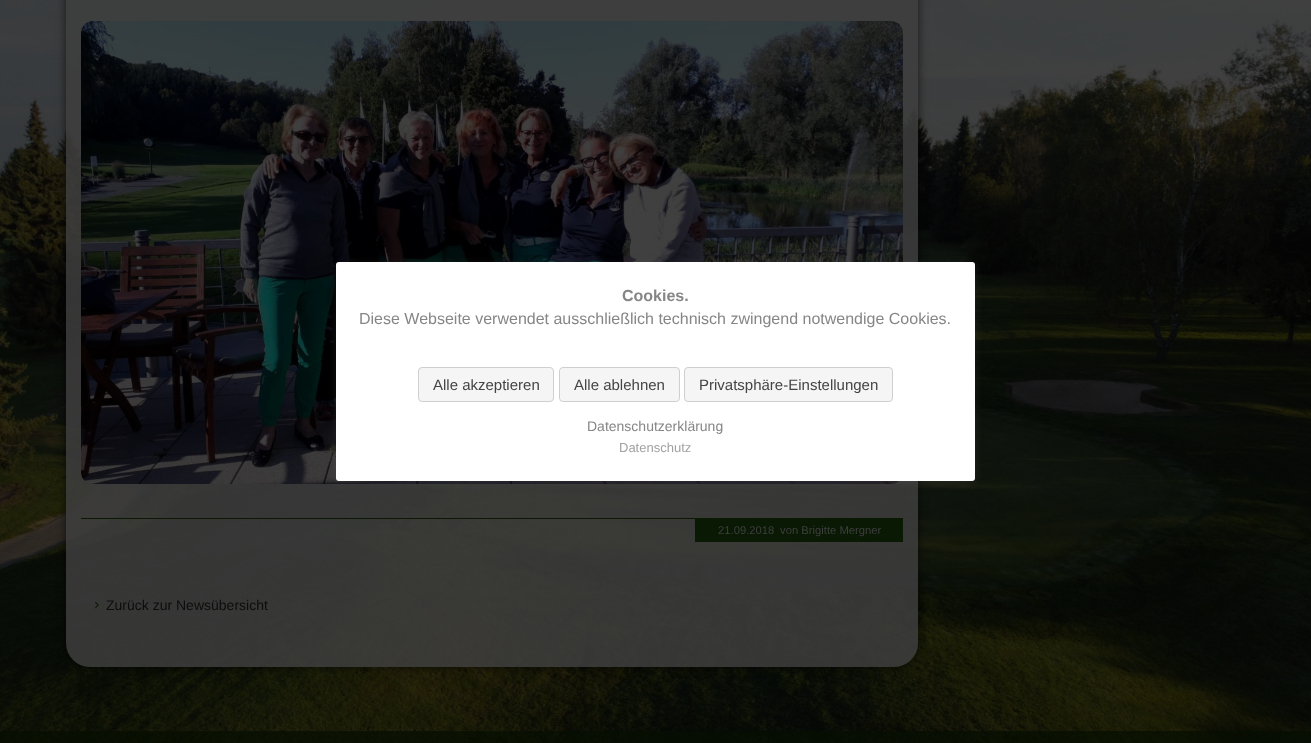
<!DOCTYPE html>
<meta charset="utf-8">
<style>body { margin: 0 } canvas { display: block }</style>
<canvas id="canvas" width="1311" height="743"></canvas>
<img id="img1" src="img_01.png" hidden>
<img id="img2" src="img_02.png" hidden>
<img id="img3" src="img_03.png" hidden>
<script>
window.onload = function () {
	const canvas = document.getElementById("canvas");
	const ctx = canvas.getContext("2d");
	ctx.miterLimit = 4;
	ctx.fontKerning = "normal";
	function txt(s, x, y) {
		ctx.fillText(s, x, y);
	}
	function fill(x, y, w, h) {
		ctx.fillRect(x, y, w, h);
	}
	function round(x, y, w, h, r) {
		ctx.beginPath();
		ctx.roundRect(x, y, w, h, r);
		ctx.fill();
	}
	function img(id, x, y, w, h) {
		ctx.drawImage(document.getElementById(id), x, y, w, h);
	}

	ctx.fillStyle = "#FFFFFF";
	fill(0, 0, 1311, 743);
	img("img1", 0, 0, 1311, 743);
	ctx.save();
	ctx.beginPath();
	ctx.moveTo(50, 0);
	ctx.lineTo(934, 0);
	ctx.lineTo(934, 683);
	ctx.lineTo(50, 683);
	ctx.closePath();
	ctx.moveTo(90, -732);
	ctx.lineTo(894, -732);
	ctx.bezierCurveTo(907.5, -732, 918, -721.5, 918, -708);
	ctx.lineTo(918, 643);
	ctx.bezierCurveTo(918, 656.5, 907.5, 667, 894, 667);
	ctx.lineTo(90, 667);
	ctx.bezierCurveTo(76.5, 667, 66, 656.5, 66, 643);
	ctx.lineTo(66, -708);
	ctx.bezierCurveTo(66, -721.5, 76.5, -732, 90, -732);
	ctx.closePath();
	ctx.clip("evenodd");
	ctx.fillStyle = "rgba(0, 0, 0, 0.6)";
	ctx.filter = "blur(5px)";
	ctx.beginPath();
	ctx.roundRect(66, -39, 852, 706, 24);
	ctx.fill();
	ctx.filter = "none";
	ctx.restore();
	ctx.fillStyle = "rgba(62, 62, 62, 0.85)";
	round(66, -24, 852, 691, 24);
	img("img2", 81, 21, 822, 463);
	ctx.fillStyle = "rgba(99, 99, 99, 0.2)";
	ctx.filter = "blur(4px)";
	ctx.beginPath();
	ctx.roundRect(336, 264, 639, 219, 3);
	ctx.fill();
	ctx.filter = "none";
	ctx.fillStyle = "#FFFFFF";
	round(336, 262, 639, 219, 3);
	ctx.fillStyle = "#F5F5F5";
	ctx.beginPath();
	ctx.roundRect(418.5, 367.5, 135, 34, 3.5);
	ctx.fill();
	ctx.strokeStyle = "#CFCFCF";
	ctx.stroke();
	ctx.beginPath();
	ctx.roundRect(559.5, 367.5, 120, 34, 3.5);
	ctx.fill();
	ctx.stroke();
	ctx.beginPath();
	ctx.roundRect(684.5, 367.5, 208, 34, 3.5);
	ctx.fill();
	ctx.stroke();
	ctx.fillStyle = "#091904";
	fill(81, 518, 822, 1);
	fill(695, 519, 208, 23);
	img("img3", 95, 601, 4, 8);
	ctx.fillStyle = "rgba(5, 14, 2, 0.7)";
	fill(0, 731, 1311, 12);
	ctx.font = "bold 16px Liberation Sans";
	ctx.fillStyle = "#868686";
	txt("Cookies.", 622, 301);
	ctx.font = "16px Liberation Sans";
	txt("Diese Webseite verwendet ausschließlich technisch zwingend notwendige Cookies.", 359, 324);
	ctx.font = "15px Liberation Sans";
	ctx.fillStyle = "#444444";
	txt("Alle akzeptieren", 433, 390);
	txt("Alle ablehnen", 574, 390);
	txt("Privatsphäre-Einstellungen", 699, 390);
	ctx.font = "14px Liberation Sans";
	ctx.fillStyle = "#868686";
	txt("Datenschutzerklärung", 587, 431);
	ctx.font = "13px Liberation Sans";
	ctx.fillStyle = "#A2A2A2";
	txt("Datenschutz", 619, 452);
	ctx.font = "11.25px Liberation Sans";
	ctx.fillStyle = "#3E3E3E";
	txt("21.09.2018", 718, 534);
	txt("von Brigitte Mergner", 780, 534);
	ctx.font = "14px Liberation Sans";
	ctx.fillStyle = "#0D0D0D";
	txt("Zurück zur Newsübersicht", 106, 610);
};
</script>
